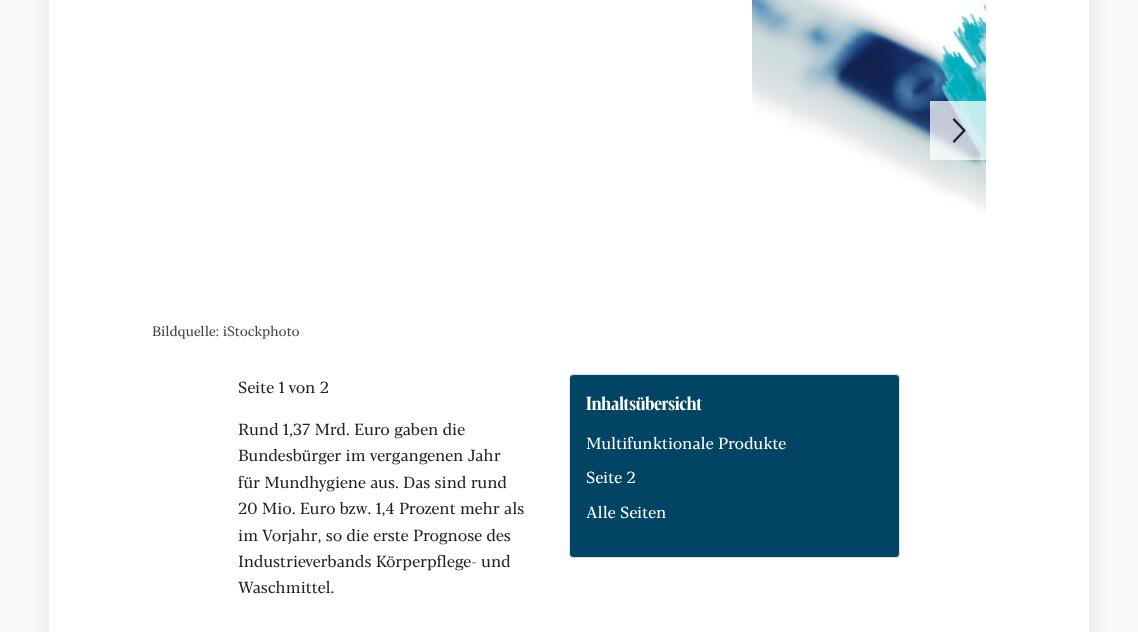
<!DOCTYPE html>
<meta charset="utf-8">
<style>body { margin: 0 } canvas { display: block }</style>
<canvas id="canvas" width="1138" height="632"></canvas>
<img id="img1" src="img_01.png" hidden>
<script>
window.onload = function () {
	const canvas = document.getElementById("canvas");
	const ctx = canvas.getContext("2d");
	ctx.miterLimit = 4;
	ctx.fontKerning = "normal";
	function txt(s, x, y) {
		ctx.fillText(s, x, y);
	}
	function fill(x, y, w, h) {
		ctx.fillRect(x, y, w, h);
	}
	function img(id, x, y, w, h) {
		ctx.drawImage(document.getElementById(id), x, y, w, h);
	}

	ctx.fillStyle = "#F7F8FA";
	fill(0, 0, 1138, 632);
	ctx.fillStyle = "rgba(0, 0, 0, 0.08)";
	ctx.filter = "blur(10px)";
	ctx.beginPath();
	ctx.rect(49, -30, 1040, 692);
	ctx.fill();
	ctx.filter = "none";
	ctx.fillStyle = "#FFFFFF";
	fill(49, 0, 1040, 632);
	img("img1", 752, 0, 234, 213);
	ctx.fillStyle = "rgba(255, 255, 255, 0.75)";
	fill(930, 101, 56, 59);
	ctx.beginPath();
	ctx.moveTo(954, 119.5);
	ctx.lineTo(962.5, 128.5);
	ctx.bezierCurveTo(965, 131, 965, 130, 962.5, 132.5);
	ctx.lineTo(954, 141.5);
	ctx.strokeStyle = "#1F2226";
	ctx.lineWidth = 2.4;
	ctx.lineCap = "round";
	ctx.lineJoin = "round";
	ctx.stroke();
	ctx.fillStyle = "#014463";
	ctx.beginPath();
	ctx.roundRect(569.5, 374.5, 330, 183, 3.5);
	ctx.fill();
	ctx.strokeStyle = "#DFE2E5";
	ctx.lineWidth = 1;
	ctx.lineJoin = "miter";
	ctx.stroke();
	ctx.font = "900 13.6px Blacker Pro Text";
	ctx.fillStyle = "#3D444D";
	txt("Bildquelle: iStockphoto", 152, 336);
	ctx.font = "900 16px Blacker Pro Text";
	ctx.fillStyle = "#1F2226";
	txt("Seite 1 von 2", 238, 393);
	txt("Rund 1,37 Mrd. Euro gaben die", 238, 435);
	txt("Bundesbürger im vergangenen Jahr", 238, 461);
	txt("für Mundhygiene aus. Das sind rund", 238, 488);
	txt("20 Mio. Euro bzw. 1,4 Prozent mehr als", 238, 514);
	txt("im Vorjahr, so die erste Prognose des", 238, 541);
	txt("Industrieverbands Körperpflege- und", 238, 567);
	txt("Waschmittel.", 238, 593);
	ctx.letterSpacing = "-0.4px";
	ctx.font = "bold 18.75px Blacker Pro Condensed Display";
	ctx.fillStyle = "#FFFFFF";
	txt("Inhaltsübersicht", 586, 410);
	ctx.letterSpacing = "0px";
	ctx.font = "900 16px Blacker Pro Text";
	txt("Multifunktionale Produkte", 586, 449);
	txt("Seite 2", 586, 483);
	txt("Alle Seiten", 586, 518);
};
</script>
